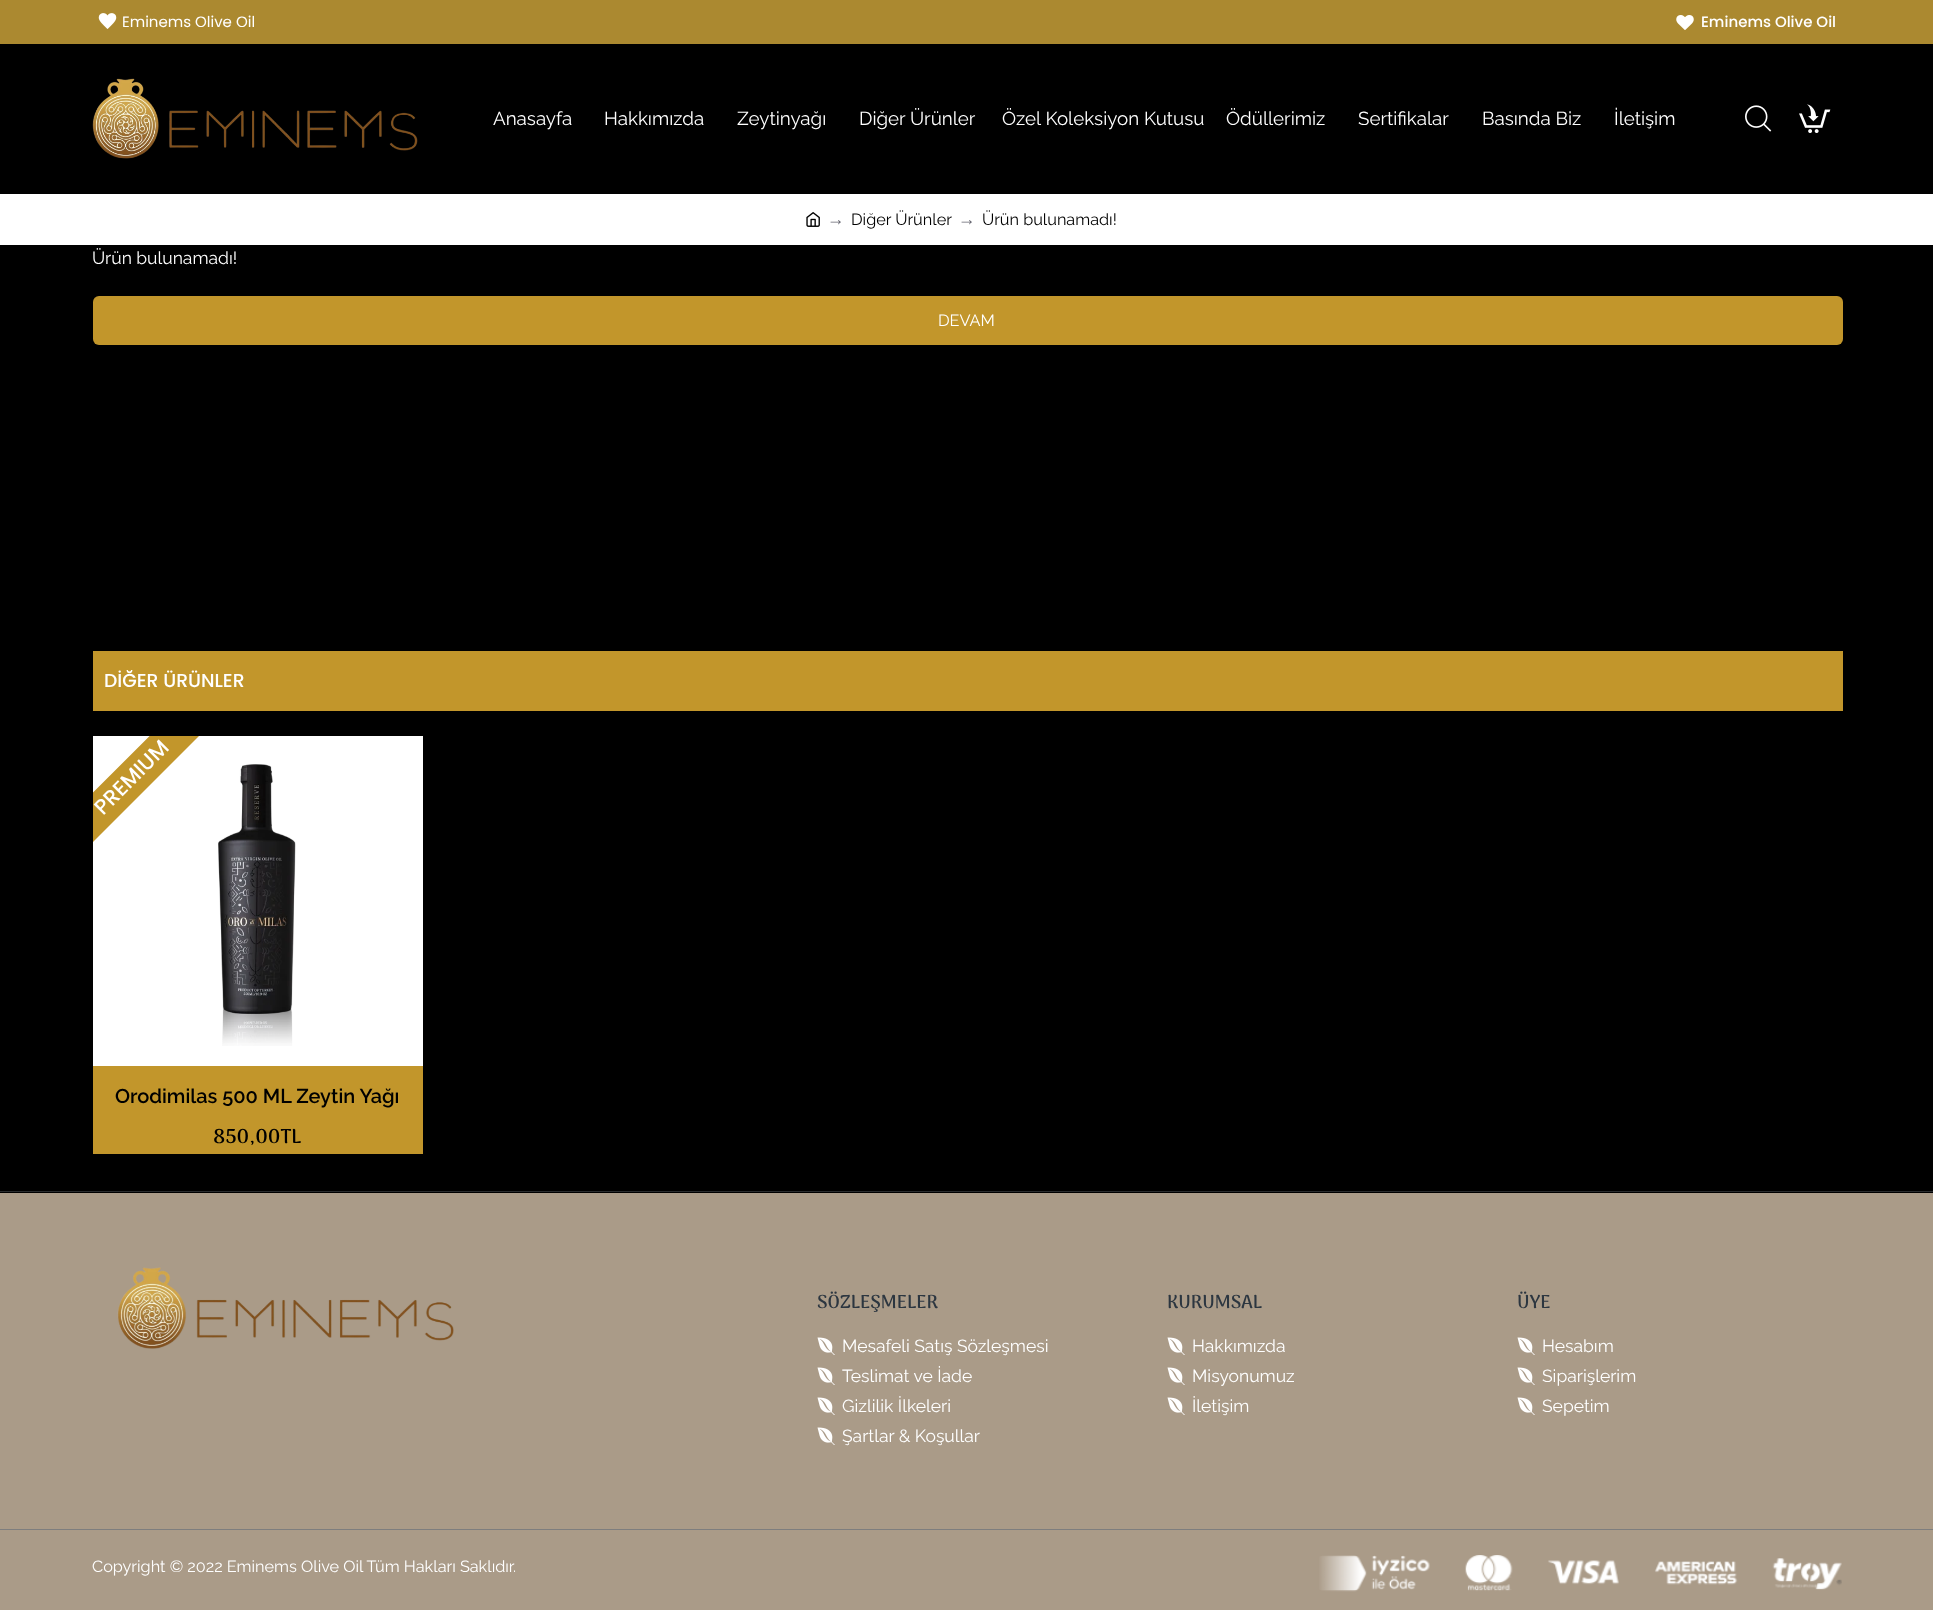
<!DOCTYPE html>
<meta charset="utf-8">
<style>body { margin: 0 } canvas { display: block }</style>
<canvas id="canvas" width="1933" height="1610"></canvas>
<img id="img1" src="img_01.png" hidden>
<img id="img2" src="img_02.png" hidden>
<img id="img3" src="img_03.png" hidden>
<img id="img4" src="img_04.png" hidden>
<img id="img5" src="img_05.png" hidden>
<img id="img6" src="img_06.png" hidden>
<img id="img7" src="img_07.png" hidden>
<img id="img8" src="img_08.png" hidden>
<img id="img9" src="img_09.png" hidden>
<img id="img10" src="img_10.png" hidden>
<script>
window.onload = function () {
	const canvas = document.getElementById("canvas");
	const ctx = canvas.getContext("2d");
	ctx.miterLimit = 4;
	ctx.fontKerning = "normal";
	function txt(s, x, y) {
		ctx.fillText(s, x, y);
	}
	function fill(x, y, w, h) {
		ctx.fillRect(x, y, w, h);
	}
	function round(x, y, w, h, r) {
		ctx.beginPath();
		ctx.roundRect(x, y, w, h, r);
		ctx.fill();
	}
	function img(id, x, y, w, h) {
		ctx.drawImage(document.getElementById(id), x, y, w, h);
	}

	ctx.fillStyle = "#000000";
	fill(0, 0, 1933, 1610);
	ctx.fillStyle = "#AB8930";
	fill(0, 0, 1933, 44);
	img("img1", 98, 13, 19, 16);
	img("img2", 1676, 15, 18, 15);
	img("img3", 92, 78, 326, 81);
	img("img4", 1745, 105, 27, 27);
	img("img5", 1799, 104, 32, 29);
	ctx.fillStyle = "#FFFFFF";
	fill(0, 194, 1933, 51);
	img("img6", 806, 212, 14, 15);
	ctx.fillStyle = "#C2962B";
	round(93, 296, 1750, 49, 6);
	fill(93, 651, 1750, 60);
	fill(93, 1066, 330, 88);
	ctx.fillStyle = "#FFFFFF";
	fill(93, 736, 330, 330);
	img("img7", 218, 764, 78, 282);
	ctx.save();
	ctx.beginPath();
	ctx.rect(93, 736, 330, 330);
	ctx.clip();
	ctx.fillStyle = "#C2962B";
	ctx.beginPath();
	ctx.moveTo(-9, 894);
	ctx.lineTo(248, 638);
	ctx.bezierCurveTo(250, 635, 254, 635, 257, 638);
	ctx.lineTo(272, 654);
	ctx.bezierCurveTo(275, 656, 275, 660, 272, 663);
	ctx.lineTo(16, 919);
	ctx.bezierCurveTo(14, 921, 10, 921, 7, 919);
	ctx.lineTo(-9, 903);
	ctx.bezierCurveTo(-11, 901, -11, 897, -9, 894);
	ctx.closePath();
	ctx.fill();
	ctx.restore();
	ctx.fillStyle = "#2A2C2E";
	fill(0, 1191, 1933, 1);
	ctx.fillStyle = "#AA9B88";
	fill(0, 1193, 1933, 336);
	ctx.fillStyle = "#7E7E7E";
	fill(0, 1529, 1933, 1);
	img("img8", 117, 1267, 337, 82);
	img("img9", 817, 1337, 18, 18);
	img("img9", 817, 1367, 18, 18);
	img("img9", 817, 1397, 18, 18);
	img("img9", 817, 1427, 18, 18);
	img("img9", 1167, 1337, 18, 18);
	img("img9", 1167, 1367, 18, 18);
	img("img9", 1167, 1397, 18, 18);
	img("img9", 1517, 1337, 18, 18);
	img("img9", 1517, 1367, 18, 18);
	img("img9", 1517, 1397, 18, 18);
	ctx.fillStyle = "#AA9B88";
	fill(0, 1530, 1933, 80);
	img("img10", 1319, 1555, 523, 37);
	ctx.font = "15px Poppins";
	ctx.fillStyle = "#FFFFFF";
	txt("Eminems Olive Oil", 122, 27);
	ctx.font = "500 15px Poppins";
	txt("Eminems Olive Oil", 1701, 27);
	ctx.font = "18.75px Raleway";
	txt("Anasayfa", 493, 125);
	txt("Hakkımızda", 604, 125);
	txt("Zeytinyağı", 737, 125);
	txt("Diğer Ürünler", 859, 125);
	txt("Özel Koleksiyon Kutusu", 1002, 125);
	txt("Ödüllerimiz", 1226, 125);
	txt("Sertifikalar", 1358, 125);
	txt("Basında Biz", 1482, 125);
	txt("İletişim", 1614, 125);
	ctx.font = "17.5px Liberation Serif";
	ctx.fillStyle = "#696973";
	txt("→", 827, 225);
	ctx.font = "16.25px Raleway";
	ctx.fillStyle = "#000000";
	txt("Diğer Ürünler", 851, 225);
	ctx.font = "17.5px Liberation Serif";
	ctx.fillStyle = "#696973";
	txt("→", 958, 225);
	ctx.font = "16.25px Raleway";
	ctx.fillStyle = "#000000";
	txt("Ürün bulunamadı!", 982, 225);
	ctx.font = "17.5px Raleway";
	ctx.fillStyle = "#FFFFFF";
	txt("Ürün bulunamadı!", 92, 264);
	ctx.font = "16.25px Raleway";
	txt("DEVAM", 938, 326);
	ctx.font = "500 18.75px Poppins";
	txt("DİĞER ÜRÜNLER", 104, 687);
	ctx.font = "500 21.25px Poppins";
	ctx.save();
	ctx.translate(103, 816);
	ctx.rotate(-45 * Math.PI / 180);
	ctx.fillText("PREMIUM", 0, 0);
	ctx.restore();
	ctx.font = "600 20px Raleway";
	ctx.fillStyle = "#000000";
	txt("Orodimilas 500 ML Zeytin Yağı", 115, 1103);
	ctx.font = "bold 20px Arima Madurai";
	txt("850,00TL", 213, 1143);
	ctx.font = "bold 18.75px Arima Madurai";
	ctx.fillStyle = "#2C3640";
	txt("SÖZLEŞMELER", 817, 1308);
	ctx.font = "17.5px Raleway";
	ctx.fillStyle = "#FFFFFF";
	txt("Mesafeli Satış Sözleşmesi", 842, 1352);
	txt("Teslimat ve İade", 842, 1382);
	txt("Gizlilik İlkeleri", 842, 1412);
	txt("Şartlar & Koşullar", 842, 1442);
	ctx.font = "bold 18.75px Arima Madurai";
	ctx.fillStyle = "#2C3640";
	txt("KURUMSAL", 1167, 1308);
	ctx.font = "17.5px Raleway";
	ctx.fillStyle = "#FFFFFF";
	txt("Hakkımızda", 1192, 1352);
	txt("Misyonumuz", 1192, 1382);
	txt("İletişim", 1192, 1412);
	ctx.font = "bold 18.75px Arima Madurai";
	ctx.fillStyle = "#2C3640";
	txt("ÜYE", 1517, 1308);
	ctx.font = "17.5px Raleway";
	ctx.fillStyle = "#FFFFFF";
	txt("Hesabım", 1542, 1352);
	txt("Siparişlerim", 1542, 1382);
	txt("Sepetim", 1542, 1412);
	ctx.font = "16.25px Raleway";
	txt("Copyright © 2022 Eminems Olive Oil Tüm Hakları Saklıdır.", 92, 1572);
};
</script>
